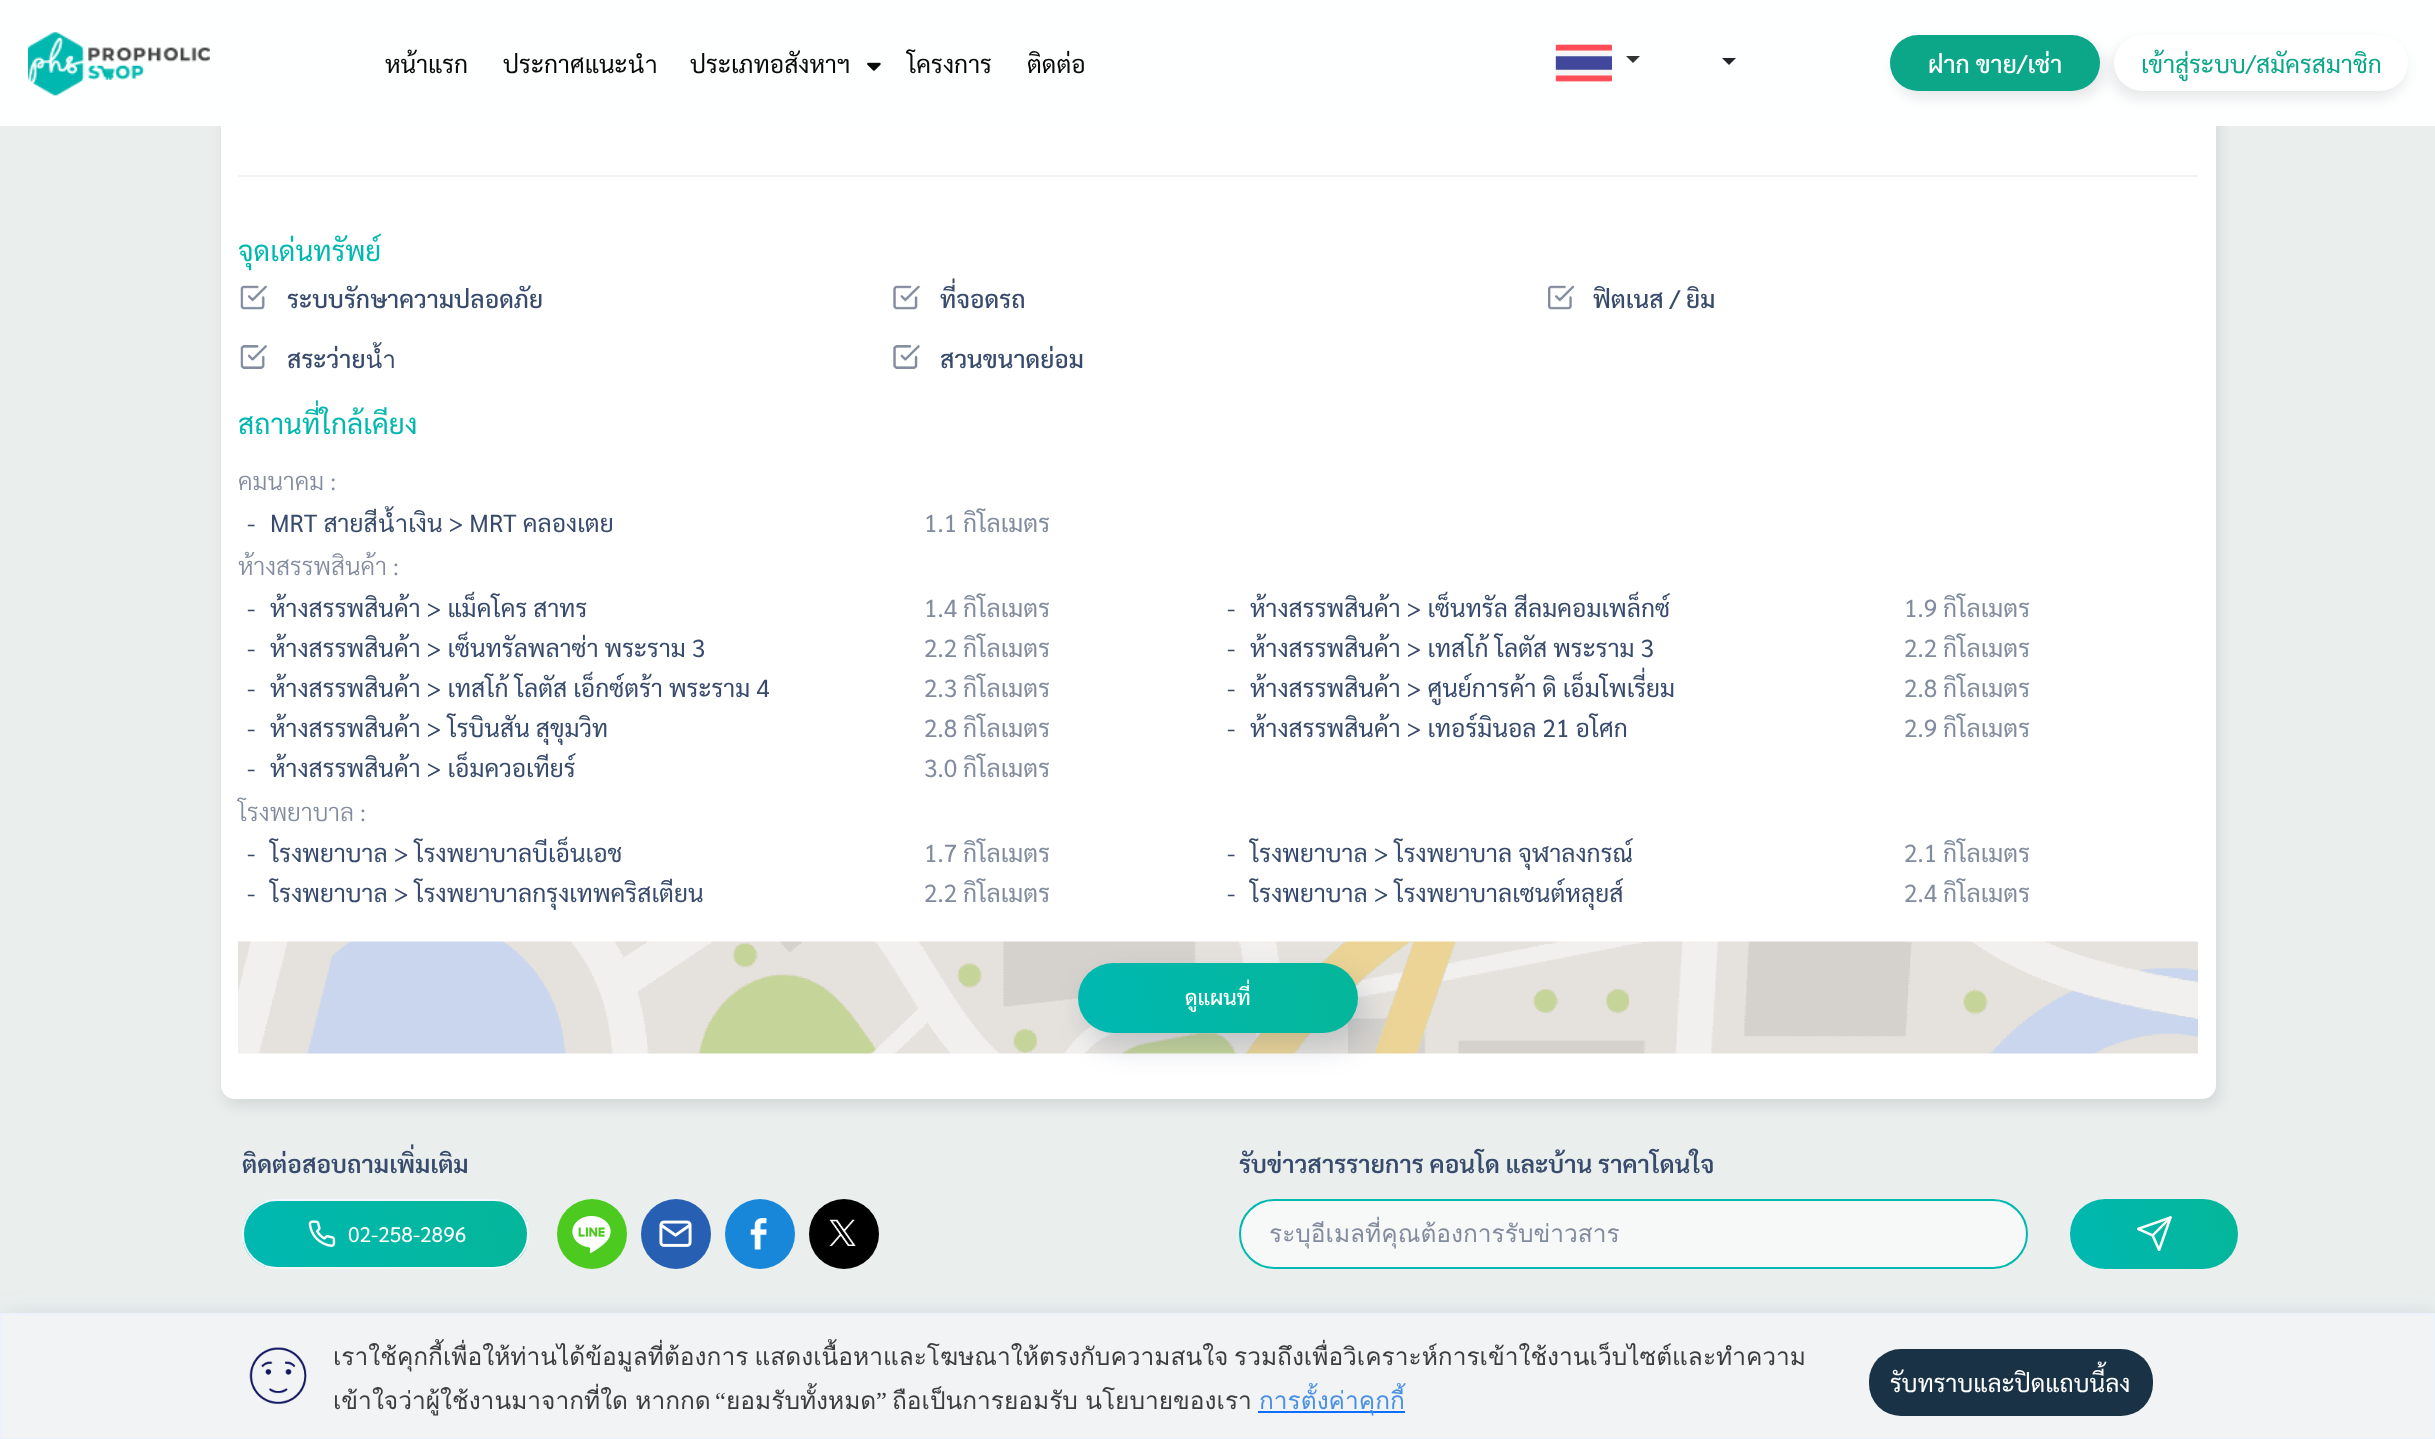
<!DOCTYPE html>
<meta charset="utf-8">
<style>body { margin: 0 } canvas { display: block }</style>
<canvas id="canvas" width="2435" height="1439"></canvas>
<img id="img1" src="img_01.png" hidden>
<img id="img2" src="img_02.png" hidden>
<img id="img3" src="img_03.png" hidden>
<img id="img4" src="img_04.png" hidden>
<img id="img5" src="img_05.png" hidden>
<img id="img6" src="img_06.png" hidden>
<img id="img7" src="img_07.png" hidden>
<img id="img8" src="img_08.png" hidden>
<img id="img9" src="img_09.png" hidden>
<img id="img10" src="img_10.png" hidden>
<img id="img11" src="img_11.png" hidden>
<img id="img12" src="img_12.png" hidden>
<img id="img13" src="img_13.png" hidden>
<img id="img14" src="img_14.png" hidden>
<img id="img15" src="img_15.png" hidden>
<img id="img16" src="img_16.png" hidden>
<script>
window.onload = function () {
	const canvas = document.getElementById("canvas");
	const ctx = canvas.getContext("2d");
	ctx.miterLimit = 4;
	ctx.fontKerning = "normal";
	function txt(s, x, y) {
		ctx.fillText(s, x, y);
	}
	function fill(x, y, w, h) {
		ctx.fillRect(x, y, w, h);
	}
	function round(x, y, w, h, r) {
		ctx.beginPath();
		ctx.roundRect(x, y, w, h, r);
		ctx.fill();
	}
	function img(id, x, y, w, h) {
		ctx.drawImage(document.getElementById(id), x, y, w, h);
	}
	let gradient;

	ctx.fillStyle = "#EAEFEE";
	fill(0, 0, 2435, 1439);
	ctx.fillStyle = "rgba(10, 10, 16, 0.1)";
	ctx.filter = "blur(7px)";
	ctx.beginPath();
	ctx.roundRect(224, -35, 1995, 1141, 14);
	ctx.fill();
	ctx.filter = "none";
	ctx.fillStyle = "#FFFFFF";
	round(221, -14, 1995, 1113, 14);
	ctx.fillStyle = "#FEFFFF";
	fill(0, 0, 2435, 126);
	img("img1", 28, 32, 182, 64);
	img("img2", 867, 62, 14, 9);
	img("img3", 1555, 44, 57, 38);
	ctx.fillStyle = "#333333";
	ctx.beginPath();
	ctx.moveTo(1626, 56);
	ctx.lineTo(1640, 56);
	ctx.lineTo(1633, 63);
	ctx.closePath();
	ctx.fill();
	ctx.fillStyle = "#212529";
	ctx.beginPath();
	ctx.moveTo(1722, 58);
	ctx.lineTo(1736, 58);
	ctx.lineTo(1729, 65);
	ctx.closePath();
	ctx.fill();
	ctx.fillStyle = "rgba(10, 10, 16, 0.1)";
	ctx.filter = "blur(7px)";
	ctx.beginPath();
	ctx.roundRect(1894, 42, 210, 56, 28);
	ctx.fill();
	ctx.filter = "none";
	ctx.fillStyle = "#0CA688";
	round(1890, 35, 210, 56, 28);
	ctx.fillStyle = "rgba(10, 10, 16, 0.1)";
	ctx.filter = "blur(7px)";
	ctx.beginPath();
	ctx.roundRect(2111, 42, 294, 56, 28);
	ctx.fill();
	ctx.filter = "none";
	ctx.fillStyle = "#FFFFFF";
	round(2114, 35, 294, 56, 28);
	ctx.fillStyle = "#F2F2F2";
	fill(238, 175, 1960, 2);
	img("img4", 240, 285, 27, 25);
	img("img5", 893, 285, 27, 25);
	img("img6", 1548, 285, 26, 25);
	img("img7", 240, 345, 27, 24);
	img("img8", 893, 345, 27, 24);
	img("img9", 238, 941, 1960, 113);
	ctx.fillStyle = "rgba(56, 75, 108, 0.2)";
	ctx.filter = "blur(14px)";
	ctx.beginPath();
	ctx.roundRect(1085, 977, 280, 70, 35);
	ctx.fill();
	ctx.filter = "none";
	gradient = ctx.createLinearGradient(1081, 1041, 1494, 909);
	gradient.addColorStop(0.06, "#00B8B0");
	gradient.addColorStop(1, "#07B58B");
	gradient.addColorStop(1, "#16A086");
	ctx.fillStyle = gradient;
	round(1078, 963, 280, 70, 35);
	ctx.save();
	ctx.beginPath();
	ctx.roundRect(242, 1199, 287, 70, 35);
	ctx.clip();
	gradient = ctx.createLinearGradient(247, 1278, 663, 1145);
	gradient.addColorStop(0.06, "#00B8B0");
	gradient.addColorStop(1, "#07B58B");
	gradient.addColorStop(1, "#16A086");
	ctx.fillStyle = gradient;
	fill(243, 1201, 284, 66);
	ctx.restore();
	ctx.beginPath();
	ctx.roundRect(243, 1200, 285, 68, 34);
	ctx.strokeStyle = "#F0F7FF";
	ctx.lineWidth = 2;
	ctx.stroke();
	img("img10", 308, 1220, 28, 27);
	ctx.fillStyle = "#4CCA20";
	ctx.beginPath();
	ctx.arc(592, 1234, 35, 0, Math.PI * 2);
	ctx.fill();
	img("img11", 572, 1216, 39, 37);
	ctx.fillStyle = "#275FB2";
	ctx.beginPath();
	ctx.arc(676, 1234, 35, 0, Math.PI * 2);
	ctx.fill();
	img("img12", 659, 1220, 33, 27);
	ctx.fillStyle = "#1887DA";
	ctx.beginPath();
	ctx.arc(760, 1234, 35, 0, Math.PI * 2);
	ctx.fill();
	img("img13", 750, 1218, 17, 32);
	ctx.fillStyle = "#000000";
	ctx.beginPath();
	ctx.arc(844, 1234, 35, 0, Math.PI * 2);
	ctx.fill();
	img("img14", 829, 1219, 27, 27);
	ctx.fillStyle = "#F7F8F8";
	ctx.beginPath();
	ctx.roundRect(1240, 1200, 787, 68, 34);
	ctx.fill();
	ctx.strokeStyle = "#00B8B0";
	ctx.stroke();
	gradient = ctx.createLinearGradient(2068, 1261, 2328, 1178);
	gradient.addColorStop(0.06, "#00B8B0");
	gradient.addColorStop(1, "#07B58B");
	gradient.addColorStop(1, "#16A086");
	ctx.fillStyle = gradient;
	round(2070, 1199, 168, 70, 35);
	img("img15", 2137, 1216, 35, 35);
	ctx.fillStyle = "rgba(56, 75, 108, 0.2)";
	ctx.filter = "blur(14px)";
	ctx.beginPath();
	ctx.rect(4, 1320, 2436, 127);
	ctx.fill();
	ctx.filter = "none";
	ctx.fillStyle = "#F1F3F4";
	ctx.beginPath();
	ctx.rect(1, 1314, 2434, 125);
	ctx.fill();
	ctx.strokeStyle = "#EBF2FE";
	ctx.stroke();
	img("img16", 249, 1347, 58, 58);
	ctx.fillStyle = "#0D6EFD";
	fill(1258, 1411, 147, 2);
	ctx.fillStyle = "#193245";
	round(1869, 1349, 284, 67, 32);
	ctx.font = "24.5px Sarabun";
	ctx.fillStyle = "#090A0A";
	txt("หน้าแรก", 385, 73);
	txt("ประกาศแนะนำ", 503, 73);
	txt("ประเภทอสังหาฯ", 690, 73);
	txt("โครงการ", 907, 73);
	txt("ติดต่อ", 1027, 73);
	ctx.font = "500 24.5px Sarabun";
	ctx.fillStyle = "#FFFFFF";
	txt("ฝาก ขาย/เช่า", 1928, 73);
	ctx.font = "24.5px Sarabun";
	ctx.fillStyle = "#0CA688";
	txt("เข้าสู่ระบบ/สมัครสมาชิก", 2141, 73);
	ctx.font = "28px Sarabun";
	ctx.fillStyle = "#00B8B0";
	txt("จุดเด่นทรัพย์", 238, 261);
	ctx.font = "500 24.5px Sarabun";
	ctx.fillStyle = "#384B6C";
	txt("ระบบรักษาความปลอดภัย", 287, 308);
	txt("ที่จอดรถ", 940, 308);
	txt("ฟิตเนส / ยิม", 1593, 308);
	txt("สระว่ายน้ำ", 287, 368);
	txt("สวนขนาดย่อม", 940, 368);
	ctx.font = "28px Sarabun";
	ctx.fillStyle = "#00B8B0";
	txt("สถานที่ใกล้เคียง", 238, 434);
	ctx.font = "300 24.5px Sarabun";
	ctx.fillStyle = "#828C9E";
	txt("คมนาคม :", 238, 490);
	ctx.font = "24.5px Sarabun";
	ctx.fillStyle = "#384B6C";
	txt("-", 247, 532);
	txt("MRT สายสีน้ำเงิน > MRT คลองเตย", 270, 532);
	ctx.fillStyle = "#828C9E";
	txt("1.1 กิโลเมตร", 924, 532);
	ctx.font = "300 24.5px Sarabun";
	txt("ห้างสรรพสินค้า :", 238, 575);
	ctx.font = "24.5px Sarabun";
	ctx.fillStyle = "#384B6C";
	txt("-", 247, 617);
	txt("ห้างสรรพสินค้า > แม็คโคร สาทร", 270, 617);
	ctx.fillStyle = "#828C9E";
	txt("1.4 กิโลเมตร", 924, 617);
	ctx.fillStyle = "#384B6C";
	txt("-", 1227, 617);
	txt("ห้างสรรพสินค้า > เซ็นทรัล สีลมคอมเพล็กซ์", 1250, 617);
	ctx.fillStyle = "#828C9E";
	txt("1.9 กิโลเมตร", 1904, 617);
	ctx.fillStyle = "#384B6C";
	txt("-", 247, 657);
	txt("ห้างสรรพสินค้า > เซ็นทรัลพลาซ่า พระราม 3", 270, 657);
	ctx.fillStyle = "#828C9E";
	txt("2.2 กิโลเมตร", 924, 657);
	ctx.fillStyle = "#384B6C";
	txt("-", 1227, 657);
	txt("ห้างสรรพสินค้า > เทสโก้ โลตัส พระราม 3", 1250, 657);
	ctx.fillStyle = "#828C9E";
	txt("2.2 กิโลเมตร", 1904, 657);
	ctx.fillStyle = "#384B6C";
	txt("-", 247, 697);
	txt("ห้างสรรพสินค้า > เทสโก้ โลตัส เอ็กซ์ตร้า พระราม 4", 270, 697);
	ctx.fillStyle = "#828C9E";
	txt("2.3 กิโลเมตร", 924, 697);
	ctx.fillStyle = "#384B6C";
	txt("-", 1227, 697);
	txt("ห้างสรรพสินค้า > ศูนย์การค้า ดิ เอ็มโพเรี่ยม", 1250, 697);
	ctx.fillStyle = "#828C9E";
	txt("2.8 กิโลเมตร", 1904, 697);
	ctx.fillStyle = "#384B6C";
	txt("-", 247, 737);
	txt("ห้างสรรพสินค้า > โรบินสัน สุขุมวิท", 270, 737);
	ctx.fillStyle = "#828C9E";
	txt("2.8 กิโลเมตร", 924, 737);
	ctx.fillStyle = "#384B6C";
	txt("-", 1227, 737);
	txt("ห้างสรรพสินค้า > เทอร์มินอล 21 อโศก", 1250, 737);
	ctx.fillStyle = "#828C9E";
	txt("2.9 กิโลเมตร", 1904, 737);
	ctx.fillStyle = "#384B6C";
	txt("-", 247, 777);
	txt("ห้างสรรพสินค้า > เอ็มควอเทียร์", 270, 777);
	ctx.fillStyle = "#828C9E";
	txt("3.0 กิโลเมตร", 924, 777);
	ctx.font = "300 24.5px Sarabun";
	txt("โรงพยาบาล :", 238, 821);
	ctx.font = "24.5px Sarabun";
	ctx.fillStyle = "#384B6C";
	txt("-", 247, 862);
	txt("โรงพยาบาล > โรงพยาบาลบีเอ็นเอช", 270, 862);
	ctx.fillStyle = "#828C9E";
	txt("1.7 กิโลเมตร", 924, 862);
	ctx.fillStyle = "#384B6C";
	txt("-", 1227, 862);
	txt("โรงพยาบาล > โรงพยาบาล จุฬาลงกรณ์", 1250, 862);
	ctx.fillStyle = "#828C9E";
	txt("2.1 กิโลเมตร", 1904, 862);
	ctx.fillStyle = "#384B6C";
	txt("-", 247, 902);
	txt("โรงพยาบาล > โรงพยาบาลกรุงเทพคริสเตียน", 270, 902);
	ctx.fillStyle = "#828C9E";
	txt("2.2 กิโลเมตร", 924, 902);
	ctx.fillStyle = "#384B6C";
	txt("-", 1227, 902);
	txt("โรงพยาบาล > โรงพยาบาลเซนต์หลุยส์", 1250, 902);
	ctx.fillStyle = "#828C9E";
	txt("2.4 กิโลเมตร", 1904, 902);
	ctx.font = "500 21px Sarabun";
	ctx.fillStyle = "#FFFFFF";
	txt("ดูแผนที่", 1185, 1005);
	ctx.font = "600 24.5px Sarabun";
	ctx.fillStyle = "#384B6C";
	txt("ติดต่อสอบถามเพิ่มเติม", 242, 1173);
	ctx.font = "21px Sarabun";
	ctx.fillStyle = "#FFFFFF";
	txt("02-258-2896", 348, 1242);
	ctx.font = "600 24.5px Sarabun";
	ctx.fillStyle = "#384B6C";
	txt("รับข่าวสารรายการ คอนโด และบ้าน ราคาโดนใจ", 1239, 1173);
	ctx.font = "24.5px Loma";
	ctx.fillStyle = "#828C9E";
	txt("ระบุอีเมลที่คุณต้องการรับข่าวสาร", 1269, 1242);
	ctx.wordSpacing = "-2px";
	ctx.fillStyle = "#3D3D3D";
	txt("เราใช้คุกกี้เพื่อให้ท่านได้ข้อมูลที่ต้องการ แสดงเนื้อหาและโฆษณาให้ตรงกับความสนใจ", 333, 1365);
	ctx.wordSpacing = "0px";
	txt("รวมถึงเพื่อวิเคราะห์การเข้าใช้งานเว็บไซต์และทำความ", 1234, 1365);
	ctx.wordSpacing = "-1px";
	txt("เข้าใจว่าผู้ใช้งานมาจากที่ใด หากกด", 333, 1409);
	ctx.wordSpacing = "0px";
	ctx.font = "24.5px Liberation Serif";
	txt("“", 715, 1409);
	ctx.font = "24.5px Loma";
	txt("ยอมรับทั้งหมด", 726, 1409);
	ctx.fillStyle = "#4A90E2";
	txt("การตั้งค่าคุกกี้", 1259, 1409);
	ctx.font = "24.5px Liberation Serif";
	ctx.fillStyle = "#3D3D3D";
	txt("”", 876, 1409);
	ctx.wordSpacing = "-1px";
	ctx.font = "24.5px Loma";
	txt("ถือเป็นการยอมรับ นโยบายของเรา", 892, 1409);
	ctx.wordSpacing = "0px";
	ctx.font = "24.5px Sarabun";
	ctx.fillStyle = "#FFFFFF";
	txt("รับทราบและปิดแถบนี้ลง", 1890, 1392);
};
</script>
